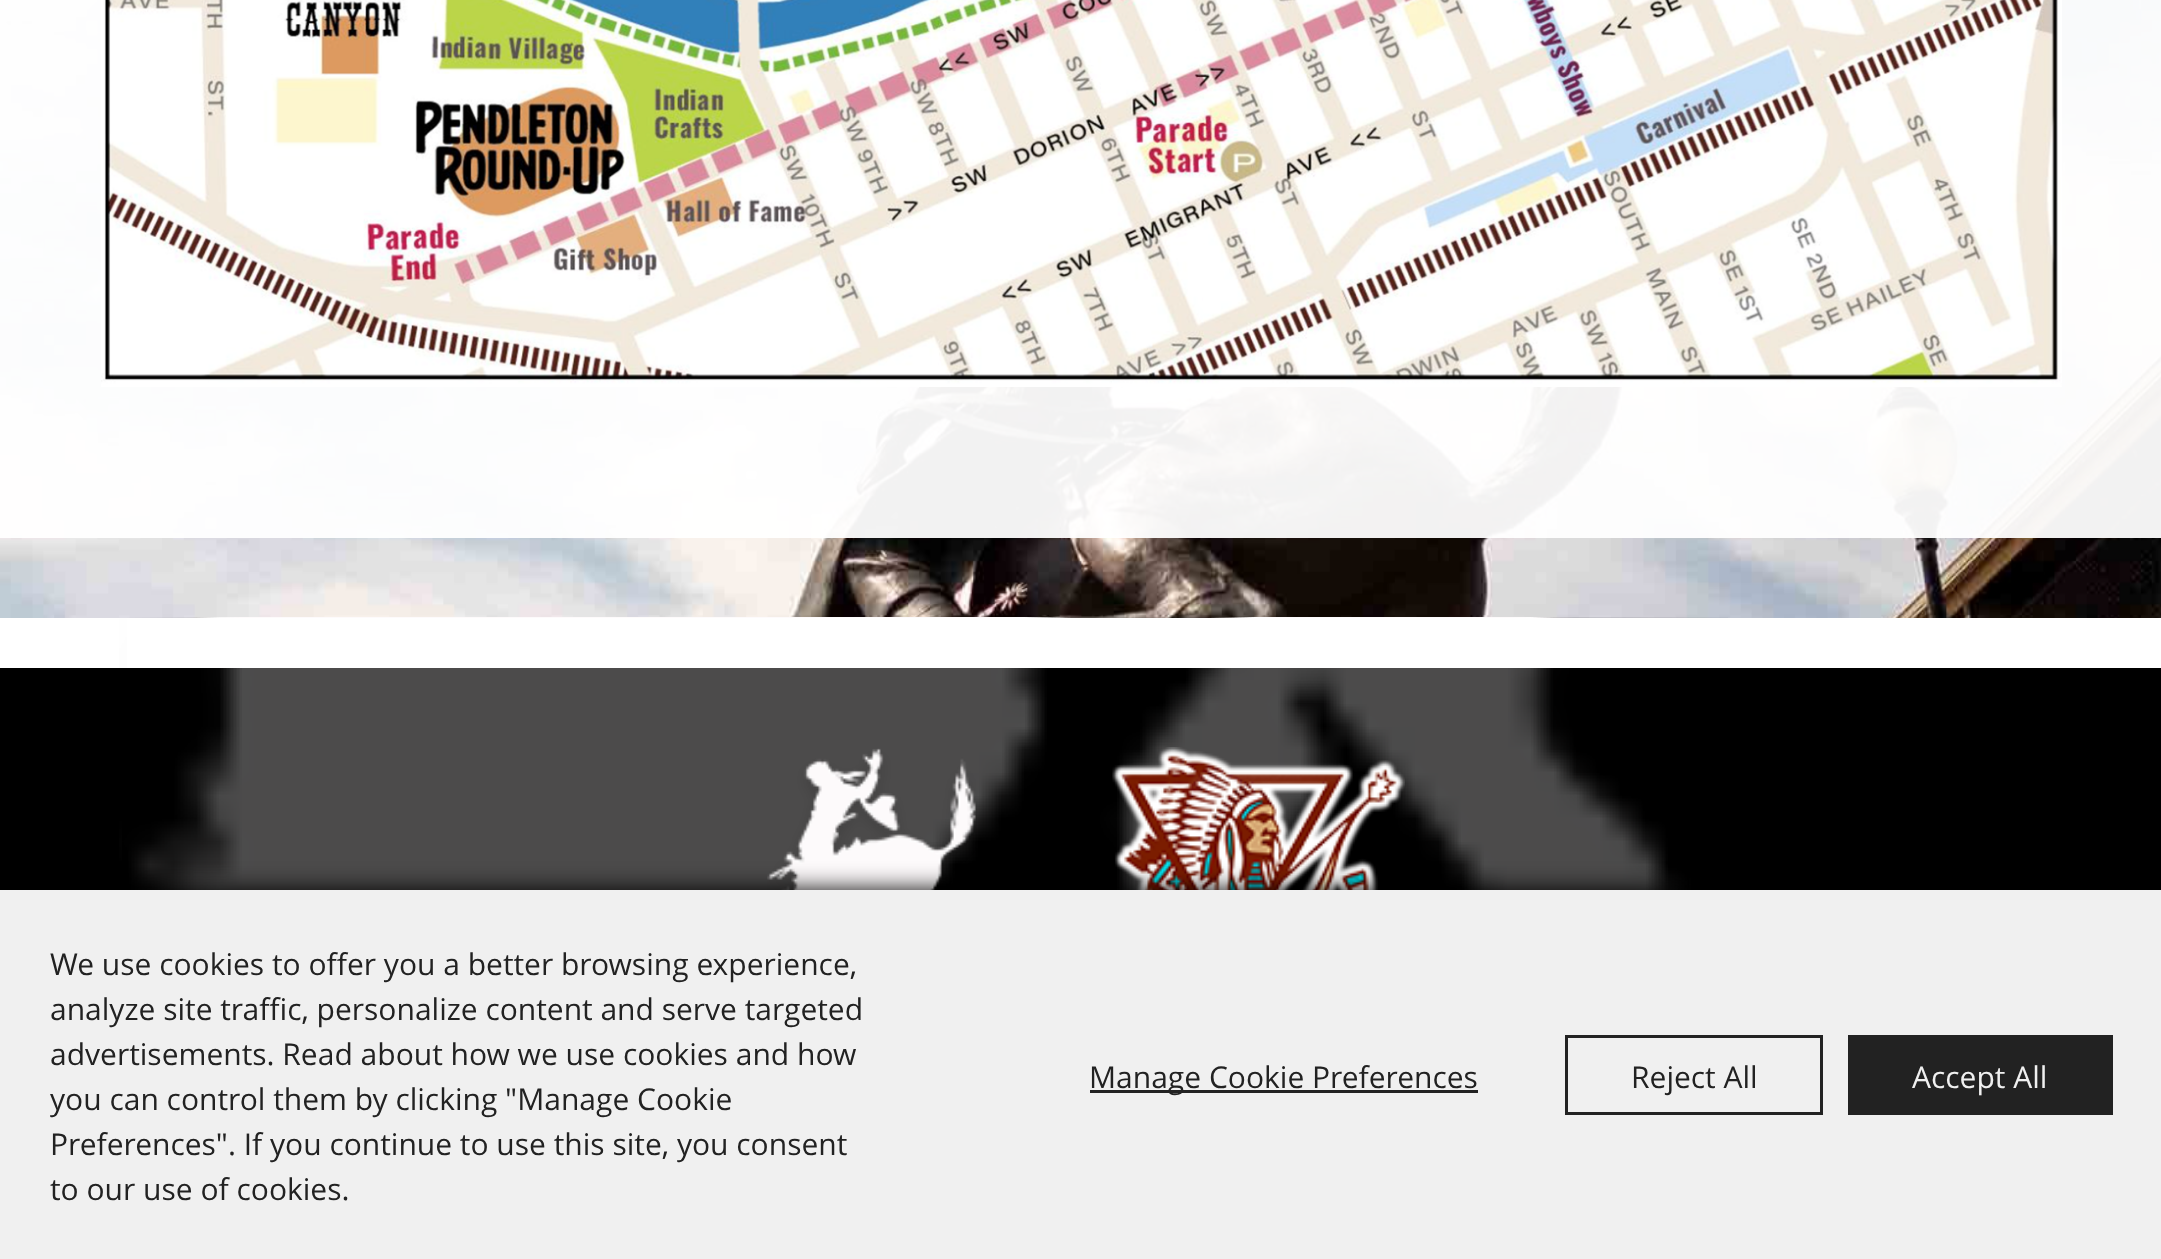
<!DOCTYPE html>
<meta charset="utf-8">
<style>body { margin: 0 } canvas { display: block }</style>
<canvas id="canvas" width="2161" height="1259"></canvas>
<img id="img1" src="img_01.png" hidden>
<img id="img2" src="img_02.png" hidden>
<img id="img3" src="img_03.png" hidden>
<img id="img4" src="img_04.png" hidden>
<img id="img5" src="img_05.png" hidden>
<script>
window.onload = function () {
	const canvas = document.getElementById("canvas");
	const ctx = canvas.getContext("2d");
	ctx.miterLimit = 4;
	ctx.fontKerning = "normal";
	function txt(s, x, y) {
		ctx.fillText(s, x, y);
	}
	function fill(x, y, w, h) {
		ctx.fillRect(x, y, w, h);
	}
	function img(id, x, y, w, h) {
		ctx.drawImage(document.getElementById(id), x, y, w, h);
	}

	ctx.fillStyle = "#FFFFFF";
	fill(0, 0, 2161, 1259);
	img("img1", 0, 0, 2161, 618);
	ctx.fillStyle = "rgba(255, 255, 255, 0.95)";
	fill(0, 0, 2161, 538);
	img("img2", 101, 0, 1961, 387);
	ctx.fillStyle = "#000000";
	fill(0, 668, 2161, 222);
	img("img3", 119, 617, 1609, 273);
	ctx.fillStyle = "#FFFFFF";
	fill(127, 618, 1601, 50);
	ctx.fillStyle = "rgba(0, 0, 0, 0.7)";
	fill(122, 668, 1567, 222);
	img("img4", 767, 748, 209, 142);
	img("img5", 1112, 747, 293, 143);
	ctx.fillStyle = "#000000";
	ctx.filter = "blur(12.5px)";
	ctx.beginPath();
	ctx.rect(-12, 890, 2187, 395);
	ctx.fill();
	ctx.filter = "none";
	ctx.fillStyle = "#F0F0F0";
	fill(0, 890, 2161, 369);
	ctx.fillStyle = "#222222";
	fill(1090, 1090, 388, 3);
	ctx.strokeStyle = "#222222";
	ctx.lineWidth = 3;
	ctx.strokeRect(1566.5, 1036.5, 255, 77);
	fill(1848, 1035, 265, 80);
	ctx.font = "30px Open Sans";
	txt("We use cookies to offer you a better browsing experience,", 50, 975);
	txt("analyze site traffic, personalize content and serve targeted", 50, 1020);
	txt("advertisements. Read about how we use cookies and how", 50, 1065);
	txt("you can control them by clicking \"Manage Cookie", 50, 1110);
	txt("Preferences\". If you continue to use this site, you consent", 50, 1155);
	txt("to our use of cookies.", 50, 1200);
	txt("Manage Cookie Preferences", 1089, 1088);
	txt("Reject All", 1631, 1088);
	ctx.fillStyle = "#F0F0F0";
	txt("Accept All", 1912, 1088);
};
</script>
